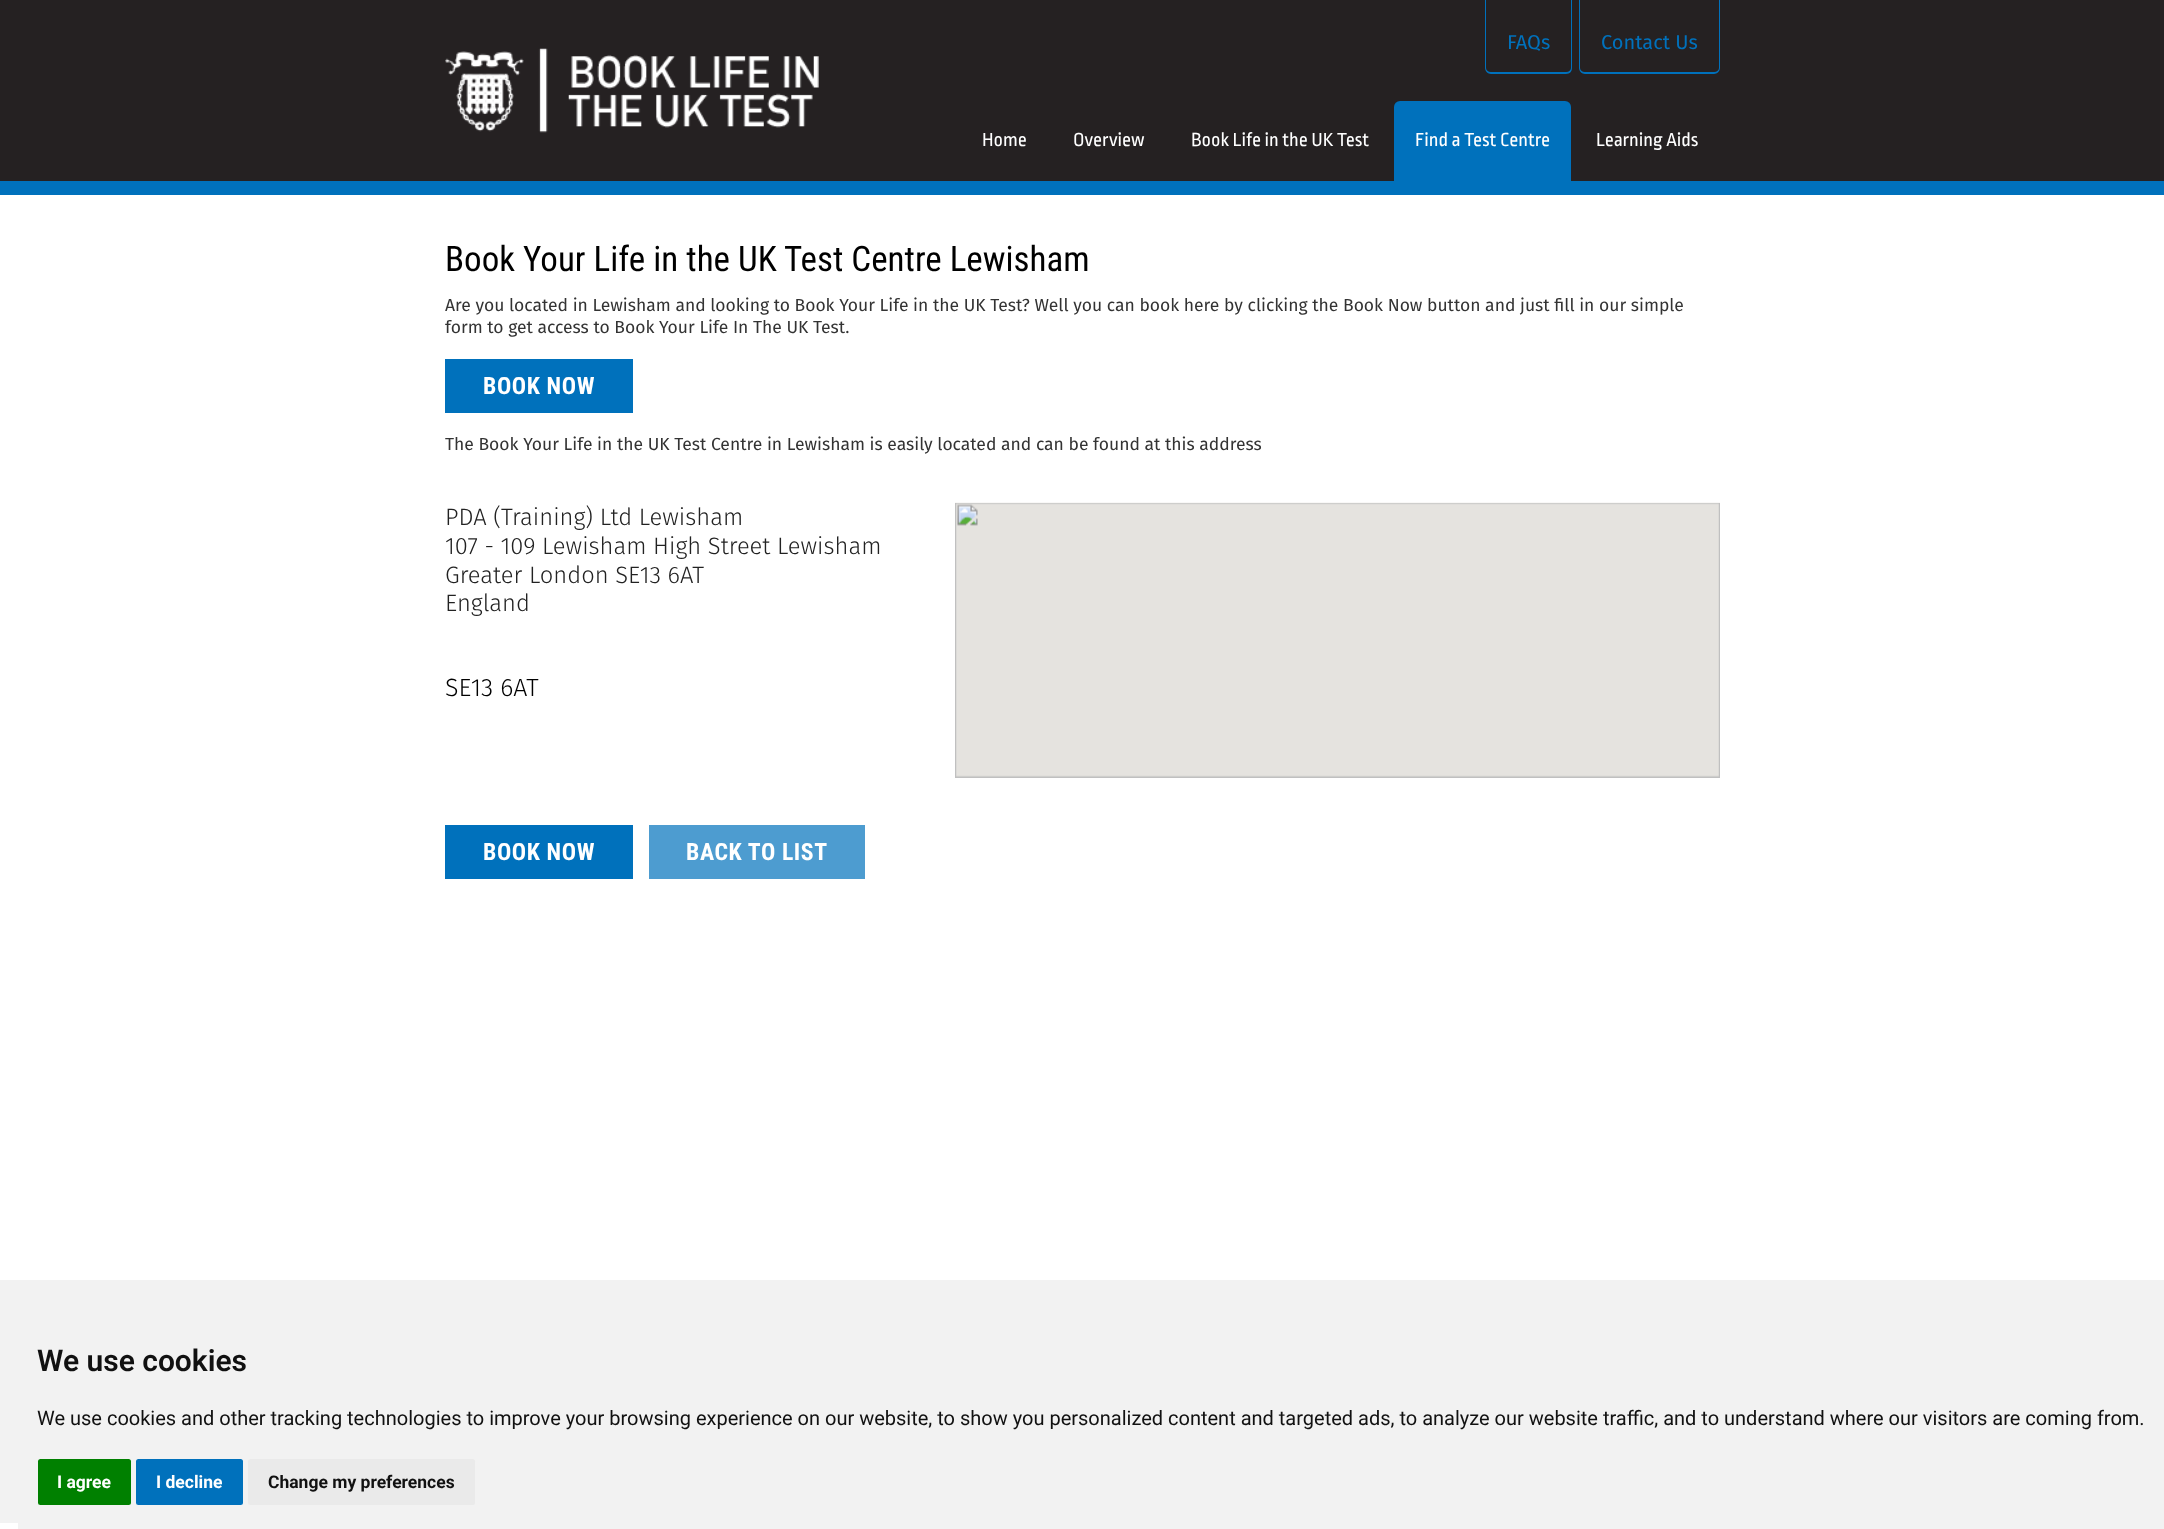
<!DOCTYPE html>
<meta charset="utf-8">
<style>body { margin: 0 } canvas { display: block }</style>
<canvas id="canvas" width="2164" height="1529"></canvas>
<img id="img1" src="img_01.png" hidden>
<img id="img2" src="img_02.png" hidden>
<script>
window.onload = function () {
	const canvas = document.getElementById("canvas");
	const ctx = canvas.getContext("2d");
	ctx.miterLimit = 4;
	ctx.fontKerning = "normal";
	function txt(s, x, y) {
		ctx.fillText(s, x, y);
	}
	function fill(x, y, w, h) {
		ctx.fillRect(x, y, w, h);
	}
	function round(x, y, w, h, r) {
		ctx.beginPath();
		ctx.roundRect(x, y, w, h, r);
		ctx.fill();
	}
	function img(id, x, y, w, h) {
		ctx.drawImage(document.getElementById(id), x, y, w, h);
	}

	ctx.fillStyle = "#FFFFFF";
	fill(0, 0, 2164, 1529);
	ctx.fillStyle = "#252122";
	fill(0, 0, 2164, 181);
	ctx.fillStyle = "#0071BC";
	fill(0, 181, 2164, 14);
	ctx.beginPath();
	ctx.moveTo(1485, -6);
	ctx.lineTo(1572, -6);
	ctx.lineTo(1572, 68);
	ctx.bezierCurveTo(1572, 71, 1570, 74, 1566, 74);
	ctx.lineTo(1491, 74);
	ctx.bezierCurveTo(1488, 74, 1485, 71, 1485, 68);
	ctx.closePath();
	ctx.moveTo(1486, -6);
	ctx.lineTo(1571, -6);
	ctx.lineTo(1571, 68);
	ctx.bezierCurveTo(1571, 70, 1569, 72, 1566, 72);
	ctx.lineTo(1491, 72);
	ctx.bezierCurveTo(1488, 72, 1486, 70, 1486, 68);
	ctx.closePath();
	ctx.fill("evenodd");
	ctx.beginPath();
	ctx.moveTo(1579, -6);
	ctx.lineTo(1720, -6);
	ctx.lineTo(1720, 68);
	ctx.bezierCurveTo(1720, 71, 1717, 74, 1714, 74);
	ctx.lineTo(1585, 74);
	ctx.bezierCurveTo(1582, 74, 1579, 71, 1579, 68);
	ctx.closePath();
	ctx.moveTo(1580, -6);
	ctx.lineTo(1719, -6);
	ctx.lineTo(1719, 68);
	ctx.bezierCurveTo(1719, 70, 1717, 72, 1714, 72);
	ctx.lineTo(1585, 72);
	ctx.bezierCurveTo(1582, 72, 1580, 70, 1580, 68);
	ctx.closePath();
	ctx.fill("evenodd");
	img("img1", 445, 48, 374, 85);
	ctx.beginPath();
	ctx.roundRect(1394, 101, 177, 80, [6, 6, 0, 0]);
	ctx.fill();
	fill(445, 359, 188, 54);
	img("img2", 955, 502, 765, 276);
	fill(445, 825, 188, 54);
	ctx.fillStyle = "#4D9CD0";
	fill(649, 825, 216, 54);
	ctx.fillStyle = "#F2F2F2";
	fill(0, 1280, 2164, 243);
	fill(18, 1523, 2146, 6);
	ctx.fillStyle = "#008000";
	round(38, 1459, 93, 46, 2.5);
	ctx.fillStyle = "#0071BC";
	round(136, 1459, 107, 46, 2.5);
	ctx.fillStyle = "#EAEAEA";
	round(248, 1459, 227, 46, 2.5);
	ctx.font = "20px Fira Sans";
	ctx.fillStyle = "#0071BC";
	txt("FAQs", 1507, 49);
	txt("Contact Us", 1601, 49);
	ctx.font = "20px Ropa Sans";
	ctx.fillStyle = "#FFFFFF";
	txt("Home", 982, 146);
	txt("Overview", 1073, 146);
	txt("Book Life in the UK Test", 1191, 146);
	txt("Find a Test Centre", 1415, 146);
	txt("Learning Aids", 1596, 146);
	ctx.font = "35px Roboto Condensed";
	ctx.fillStyle = "#000000";
	txt("Book Your Life in the UK Test Centre Lewisham", 445, 271);
	ctx.font = "17.5px Fira Sans";
	ctx.fillStyle = "#333333";
	txt("Are you located in Lewisham and looking to Book Your Life in the UK Test? Well you can book here by clicking the Book Now button and just fill in our simple", 445, 311);
	txt("form to get access to Book Your Life In The UK Test.", 445, 333);
	ctx.letterSpacing = "0.6px";
	ctx.font = "bold 23.75px Roboto Condensed";
	ctx.fillStyle = "#FFFFFF";
	txt("BOOK NOW", 483, 394);
	ctx.letterSpacing = "0px";
	ctx.font = "17.5px Fira Sans";
	ctx.fillStyle = "#333333";
	txt("The Book Your Life in the UK Test Centre in Lewisham is easily located and can be found at this address", 445, 450);
	ctx.font = "300 23.75px Fira Sans";
	ctx.fillStyle = "#222222";
	txt("PDA (Training) Ltd Lewisham", 445, 525);
	txt("107 - 109 Lewisham High Street Lewisham", 445, 554);
	txt("Greater London SE13 6AT", 445, 583);
	txt("England", 445, 611);
	ctx.font = "300 25px Fira Sans";
	ctx.fillStyle = "#000000";
	txt("SE13 6AT", 445, 696);
	ctx.letterSpacing = "0.6px";
	ctx.font = "bold 23.75px Roboto Condensed";
	ctx.fillStyle = "#FFFFFF";
	txt("BOOK NOW", 483, 860);
	txt("BACK TO LIST", 686, 860);
	ctx.letterSpacing = "0px";
	ctx.font = "600 30px Roboto";
	ctx.fillStyle = "#111111";
	txt("We use cookies", 37, 1371);
	ctx.font = "20px Roboto";
	txt("We use cookies and other tracking technologies to improve your browsing experience on our website, to show you personalized content and targeted ads, to analyze our website traffic, and to understand where our visitors are coming from.", 37, 1425);
	ctx.font = "bold 17.5px Roboto";
	ctx.fillStyle = "#FFFFFF";
	txt("I agree", 57, 1488);
	txt("I decline", 156, 1488);
	ctx.fillStyle = "#111111";
	txt("Change my preferences", 268, 1488);
};
</script>
